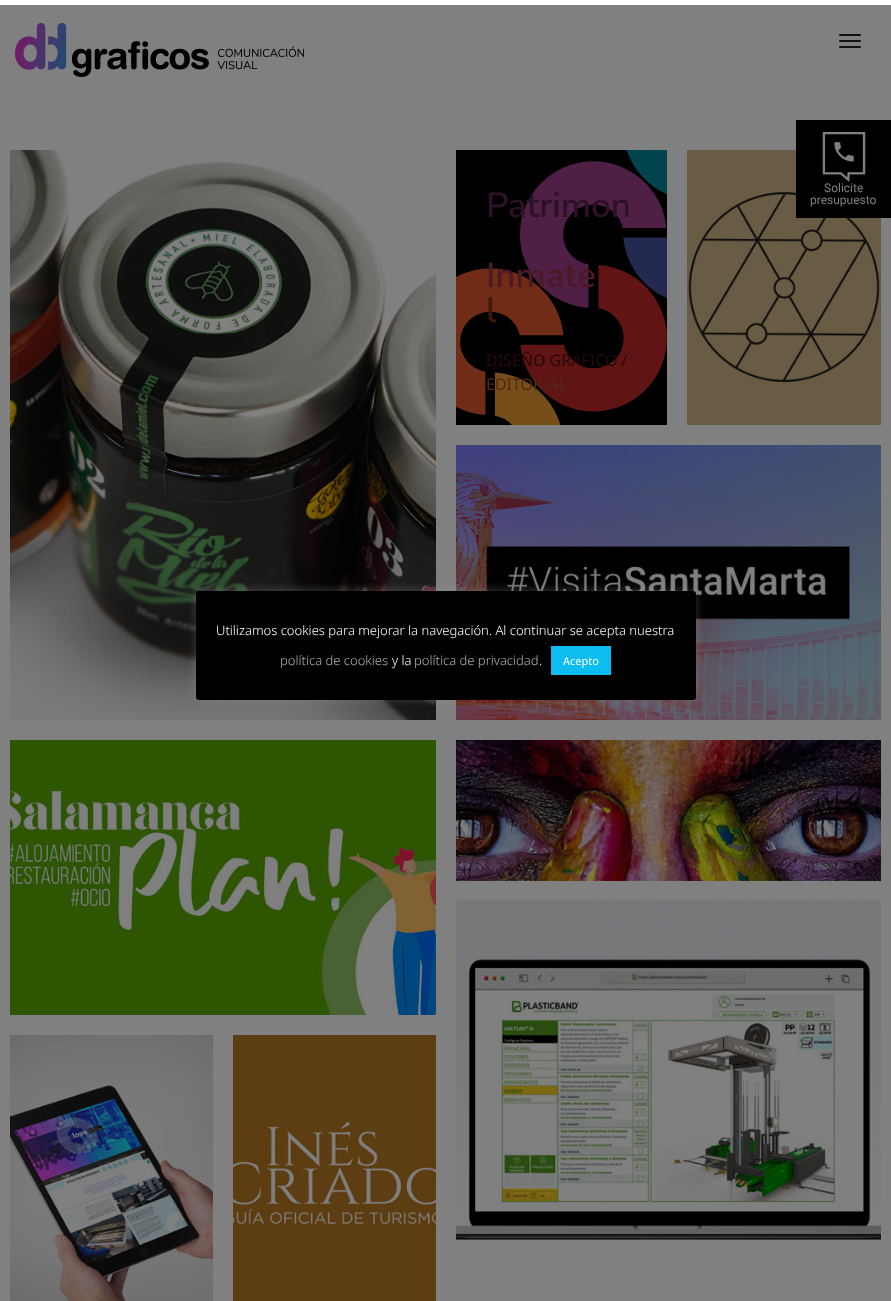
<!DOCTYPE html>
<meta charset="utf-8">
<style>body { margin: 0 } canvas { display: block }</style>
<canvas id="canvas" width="891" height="1301"></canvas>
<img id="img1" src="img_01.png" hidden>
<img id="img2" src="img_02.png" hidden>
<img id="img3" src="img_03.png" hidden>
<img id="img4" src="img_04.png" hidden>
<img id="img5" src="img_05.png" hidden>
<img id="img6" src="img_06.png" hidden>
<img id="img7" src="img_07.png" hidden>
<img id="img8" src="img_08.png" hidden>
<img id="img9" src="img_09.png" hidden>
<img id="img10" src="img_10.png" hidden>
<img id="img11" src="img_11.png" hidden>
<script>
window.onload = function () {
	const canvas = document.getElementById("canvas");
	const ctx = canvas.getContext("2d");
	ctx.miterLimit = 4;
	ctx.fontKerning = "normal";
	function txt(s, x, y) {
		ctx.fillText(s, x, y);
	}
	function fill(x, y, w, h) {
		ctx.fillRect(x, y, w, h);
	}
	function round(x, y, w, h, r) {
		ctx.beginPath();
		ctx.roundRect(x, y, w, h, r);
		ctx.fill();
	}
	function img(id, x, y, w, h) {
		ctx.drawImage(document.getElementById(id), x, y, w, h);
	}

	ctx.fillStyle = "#808080";
	fill(0, 0, 891, 1301);
	ctx.fillStyle = "#FFFFFF";
	fill(0, 0, 891, 5);
	img("img1", 10, 150, 426, 570);
	img("img2", 456, 150, 211, 275);
	img("img3", 687, 150, 194, 275);
	img("img4", 456, 445, 425, 275);
	img("img5", 10, 740, 426, 275);
	img("img6", 10, 1035, 203, 266);
	img("img7", 233, 1035, 203, 266);
	img("img8", 456, 740, 425, 500);
	img("img9", 15, 23, 289, 54);
	img("img10", 839, 34, 22, 14);
	ctx.fillStyle = "#000000";
	fill(796, 120, 95, 98);
	img("img11", 822, 132, 44, 50);
	ctx.fillStyle = "rgba(172, 171, 171, 0.3)";
	ctx.filter = "blur(5px)";
	ctx.beginPath();
	ctx.roundRect(196, 590, 500, 109, 3);
	ctx.fill();
	ctx.filter = "none";
	ctx.fillStyle = "#000000";
	round(196, 591, 500, 109, 3);
	ctx.fillStyle = "#0DBDF0";
	fill(551, 646, 60, 29);
	ctx.font = "600 35px Nunito Sans";
	ctx.fillStyle = "#2C1127";
	txt("Patrimon", 486, 217);
	ctx.fillStyle = "#4C1A25";
	txt("Inmate", 486, 287);
	ctx.fillStyle = "#3E190C";
	txt("l", 486, 322);
	ctx.font = "16px Noto Sans";
	ctx.fillStyle = "#280909";
	txt("DISEÑO GRÁFICO /", 486, 366);
	ctx.fillStyle = "#562813";
	txt("EDITORIAL", 486, 390);
	ctx.font = "12px Roboto";
	ctx.fillStyle = "#808080";
	txt("Solicite", 824, 192);
	txt("presupuesto", 810, 204);
	ctx.font = "300 13px Noto Sans";
	ctx.fillStyle = "#FFFFFF";
	txt("Utilizamos cookies para mejorar la navegación. Al continuar se acepta nuestra", 216, 635);
	ctx.fillStyle = "#B1B1B1";
	txt("política de cookies", 280, 665);
	ctx.fillStyle = "#FFFFFF";
	txt("y la", 392, 665);
	ctx.fillStyle = "#B1B1B1";
	txt("política de privacidad", 414, 665);
	ctx.fillStyle = "#FFFFFF";
	txt(".", 539, 665);
	ctx.font = "11px Noto Sans";
	txt("Acepto", 563, 665);
};
</script>
